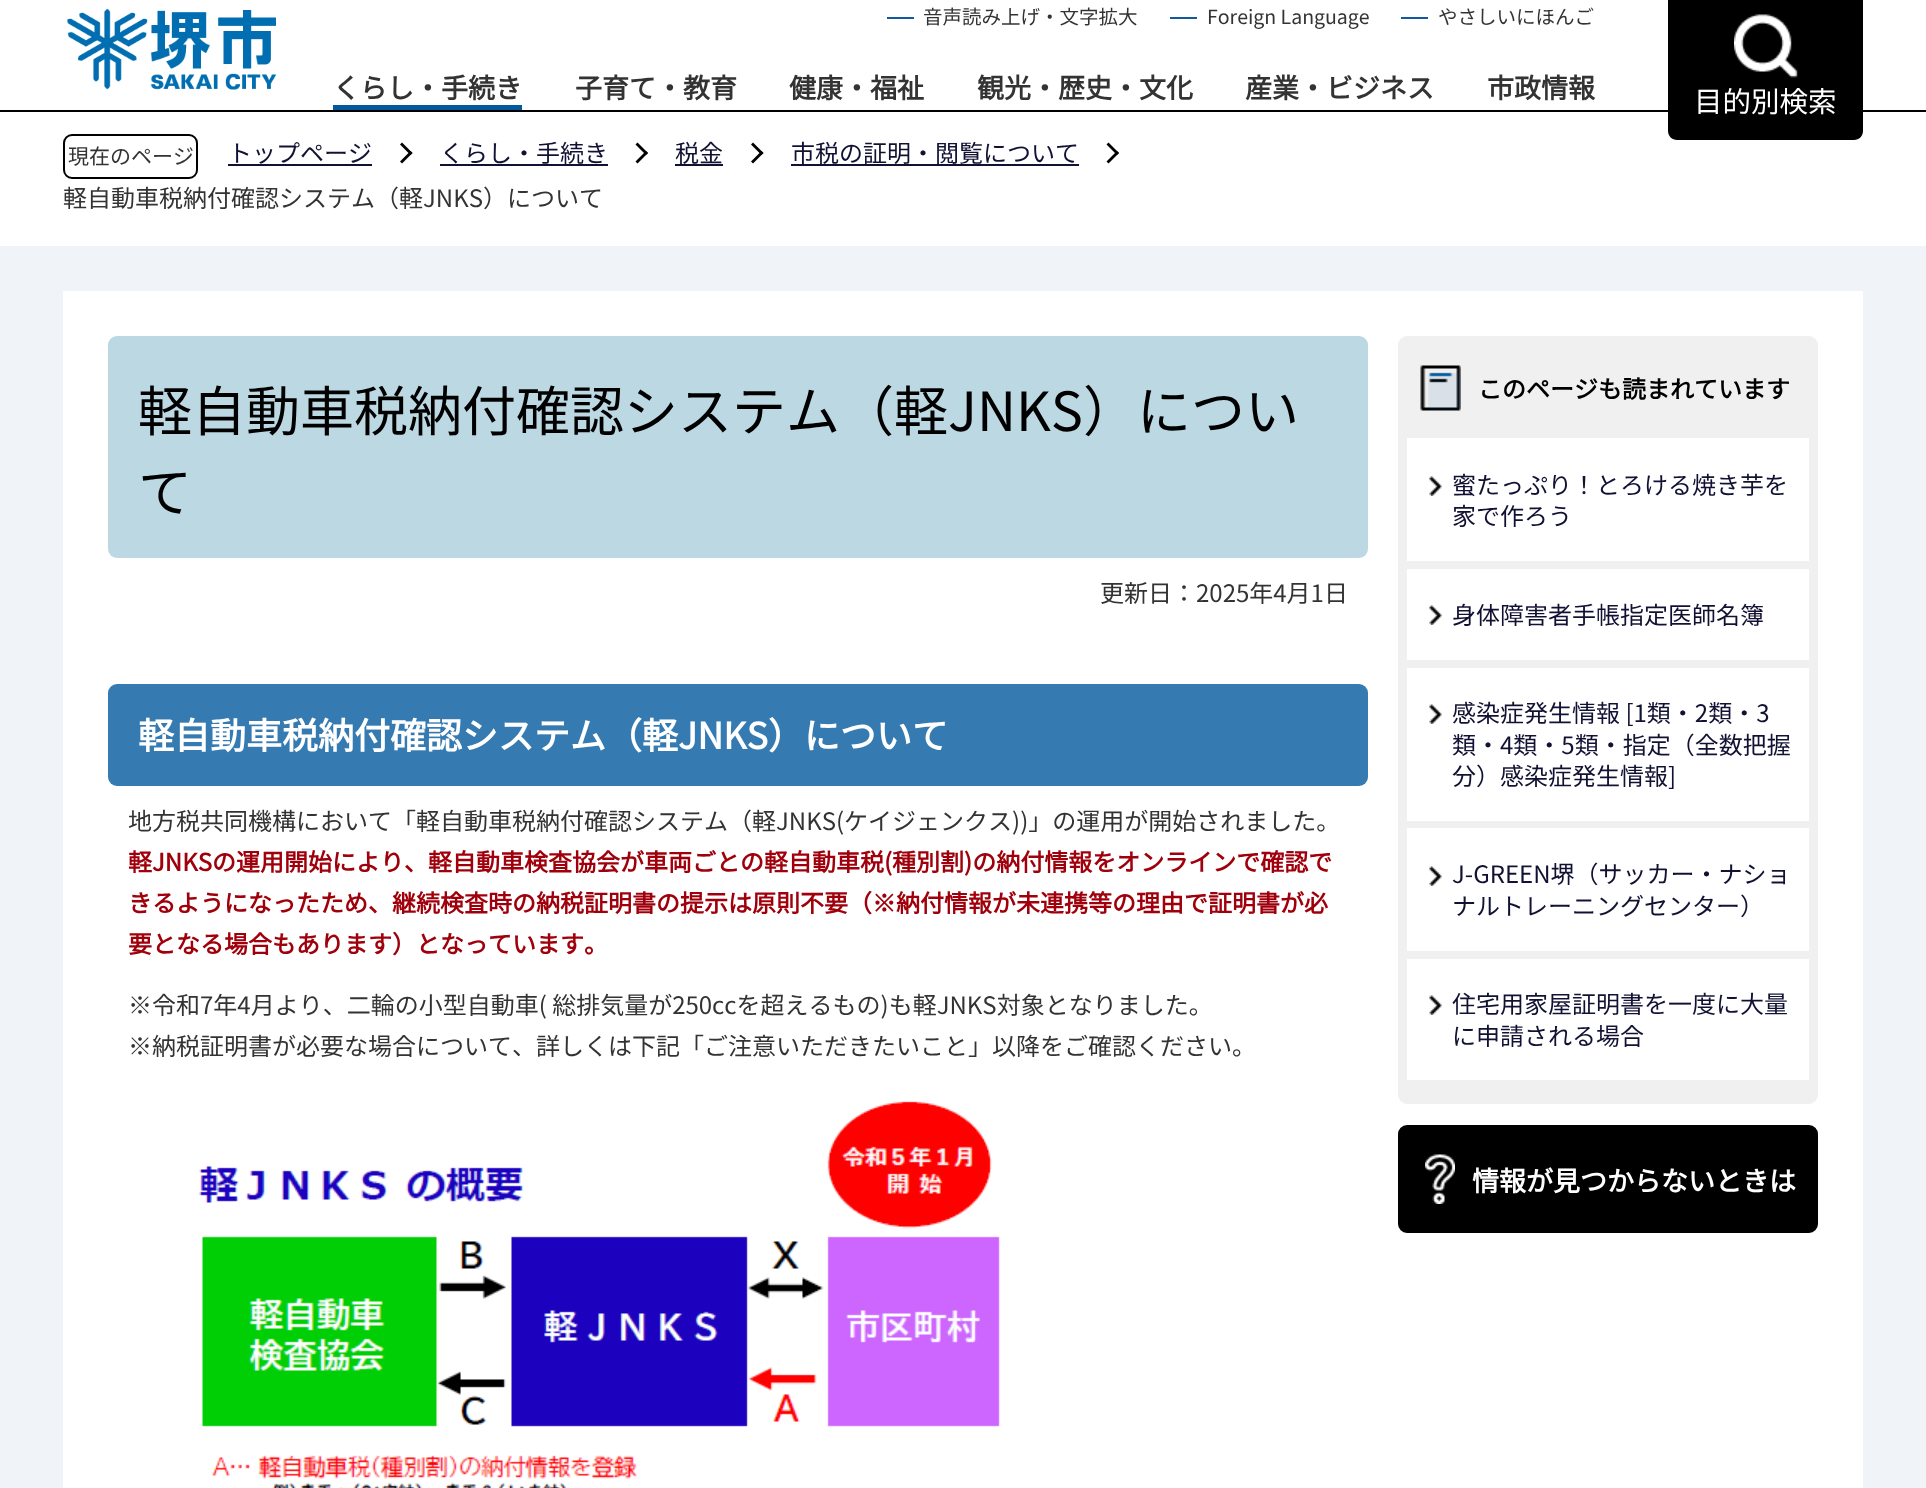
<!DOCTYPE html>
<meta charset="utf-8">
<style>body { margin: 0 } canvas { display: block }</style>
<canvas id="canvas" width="1926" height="1488"></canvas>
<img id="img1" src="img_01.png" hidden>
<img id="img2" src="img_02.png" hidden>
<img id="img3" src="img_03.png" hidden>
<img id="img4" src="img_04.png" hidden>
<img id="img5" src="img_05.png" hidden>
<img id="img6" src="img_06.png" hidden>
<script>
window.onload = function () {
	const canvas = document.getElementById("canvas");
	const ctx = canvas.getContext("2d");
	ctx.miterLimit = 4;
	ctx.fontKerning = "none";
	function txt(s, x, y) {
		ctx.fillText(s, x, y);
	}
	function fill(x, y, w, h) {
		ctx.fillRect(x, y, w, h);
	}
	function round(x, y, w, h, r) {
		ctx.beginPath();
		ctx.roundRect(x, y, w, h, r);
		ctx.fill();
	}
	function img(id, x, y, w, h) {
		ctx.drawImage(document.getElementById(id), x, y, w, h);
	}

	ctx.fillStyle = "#FFFFFF";
	fill(0, 0, 1926, 1488);
	img("img1", 66, 8, 211, 82);
	ctx.fillStyle = "#13599E";
	fill(887, 17, 27, 2);
	fill(1170, 17, 27, 2);
	fill(1401, 17, 27, 2);
	ctx.fillStyle = "#025A9D";
	fill(333, 105, 189, 5);
	ctx.fillStyle = "#000000";
	fill(0, 110, 1926, 2);
	ctx.beginPath();
	ctx.moveTo(1668, -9);
	ctx.lineTo(1863, -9);
	ctx.lineTo(1863, 131);
	ctx.bezierCurveTo(1863, 136, 1859, 140, 1854, 140);
	ctx.lineTo(1677, 140);
	ctx.bezierCurveTo(1672, 140, 1668, 136, 1668, 131);
	ctx.closePath();
	ctx.fill();
	img("img2", 1734, 14, 64, 64);
	ctx.fillStyle = "#111133";
	fill(228, 164, 144, 2);
	ctx.fillStyle = "#000000";
	ctx.beginPath();
	ctx.moveTo(402, 142.5);
	ctx.lineTo(412.5, 153);
	ctx.lineTo(410.5, 155);
	ctx.lineTo(400, 144.5);
	ctx.closePath();
	ctx.fill();
	ctx.beginPath();
	ctx.moveTo(410.5, 151);
	ctx.lineTo(412.5, 153);
	ctx.lineTo(402, 163.5);
	ctx.lineTo(400, 161.5);
	ctx.closePath();
	ctx.fill();
	ctx.fillStyle = "#111133";
	fill(440, 164, 168, 2);
	ctx.fillStyle = "#000000";
	ctx.beginPath();
	ctx.moveTo(637.5, 142.5);
	ctx.lineTo(648, 153);
	ctx.lineTo(646, 155);
	ctx.lineTo(635.5, 144.5);
	ctx.closePath();
	ctx.fill();
	ctx.beginPath();
	ctx.moveTo(646, 151);
	ctx.lineTo(648, 153);
	ctx.lineTo(637.5, 163.5);
	ctx.lineTo(635.5, 161.5);
	ctx.closePath();
	ctx.fill();
	ctx.fillStyle = "#111133";
	fill(675, 164, 48, 2);
	ctx.fillStyle = "#000000";
	ctx.beginPath();
	ctx.moveTo(753, 142.5);
	ctx.lineTo(763.5, 153);
	ctx.lineTo(761.5, 155);
	ctx.lineTo(751, 144.5);
	ctx.closePath();
	ctx.fill();
	ctx.beginPath();
	ctx.moveTo(761.5, 151);
	ctx.lineTo(763.5, 153);
	ctx.lineTo(753, 163.5);
	ctx.lineTo(751, 161.5);
	ctx.closePath();
	ctx.fill();
	ctx.fillStyle = "#111133";
	fill(791, 164, 288, 2);
	ctx.fillStyle = "#000000";
	ctx.beginPath();
	ctx.moveTo(1108.5, 142.5);
	ctx.lineTo(1119, 153);
	ctx.lineTo(1117, 155);
	ctx.lineTo(1106.5, 144.5);
	ctx.closePath();
	ctx.fill();
	ctx.beginPath();
	ctx.moveTo(1117, 151);
	ctx.lineTo(1119, 153);
	ctx.lineTo(1108.5, 163.5);
	ctx.lineTo(1106.5, 161.5);
	ctx.closePath();
	ctx.fill();
	ctx.beginPath();
	ctx.roundRect(64, 135, 133, 43, 8);
	ctx.strokeStyle = "#000000";
	ctx.lineWidth = 2;
	ctx.stroke();
	ctx.fillStyle = "#F0F4F8";
	fill(0, 246, 1926, 1242);
	ctx.fillStyle = "#FFFFFF";
	fill(63, 291, 1800, 1197);
	ctx.fillStyle = "#BCD8E2";
	round(108, 336, 1260, 222, 9);
	ctx.fillStyle = "#357BB1";
	round(108, 684, 1260, 102, 9);
	img("img3", 199, 1101, 801, 387);
	ctx.fillStyle = "#F0F0F0";
	ctx.beginPath();
	ctx.roundRect(1399, 337, 418, 766, 8);
	ctx.fill();
	ctx.strokeStyle = "#F0F0F0";
	ctx.stroke();
	img("img4", 1420, 365, 41, 46);
	ctx.fillStyle = "#FFFFFF";
	fill(1407, 438, 402, 123);
	img("img5", 1429, 476, 13, 20);
	fill(1407, 569, 402, 91);
	img("img5", 1429, 605, 13, 20);
	fill(1407, 668, 402, 153);
	img("img5", 1429, 704, 13, 20);
	fill(1407, 828, 402, 123);
	img("img5", 1429, 866, 13, 20);
	fill(1407, 959, 402, 121);
	img("img5", 1429, 995, 13, 20);
	ctx.fillStyle = "#000000";
	ctx.beginPath();
	ctx.roundRect(1399, 1126, 418, 106, 8);
	ctx.fill();
	ctx.strokeStyle = "#000000";
	ctx.stroke();
	img("img6", 1425, 1154, 30, 50);
	ctx.font = "100 19.5px Noto Sans JP";
	ctx.fillStyle = "#333333";
	txt("音声読み上げ・文字拡大", 923, 24);
	txt("Foreign Language", 1207, 24);
	txt("やさしいにほんご", 1438, 24);
	ctx.font = "bold 27px Noto Sans JP";
	txt("くらし・手続き", 333, 98);
	txt("子育て・教育", 575, 98);
	txt("健康・福祉", 789, 98);
	txt("観光・歴史・文化", 977, 98);
	txt("産業・ビジネス", 1245, 98);
	txt("市政情報", 1487, 98);
	ctx.font = "100 28.5px Noto Sans JP";
	ctx.fillStyle = "#FFFFFF";
	txt("目的別検索", 1694, 112);
	ctx.font = "100 24px Noto Sans JP";
	ctx.fillStyle = "#111133";
	txt("トップページ", 228, 162);
	txt("くらし・手続き", 440, 162);
	txt("税金", 675, 162);
	txt("市税の証明・閲覧について", 791, 162);
	ctx.fillStyle = "#333333";
	txt("軽自動車税納付確認システム（軽JNKS）について", 63, 207);
	ctx.font = "100 21px Noto Sans JP";
	txt("現在のページ", 68, 164);
	ctx.font = "100 54px Noto Sans JP";
	ctx.fillStyle = "#000000";
	txt("軽自動車税納付確認システム（軽JNKS）につい", 138, 431);
	txt("て", 138, 512);
	ctx.font = "100 24px Noto Sans JP";
	ctx.fillStyle = "#333333";
	txt("更新日：2025年4月1日", 1100, 602);
	ctx.font = "bold 36px Noto Sans JP";
	ctx.fillStyle = "#FFFFFF";
	txt("軽自動車税納付確認システム（軽JNKS）について", 138, 749);
	ctx.font = "100 24px Noto Sans JP";
	ctx.fillStyle = "#333333";
	txt("地方税共同機構において「軽自動車税納付確認システム（軽JNKS(ケイジェンクス))」の運用が開始されました。", 128, 830);
	ctx.font = "bold 24px Noto Sans JP";
	ctx.fillStyle = "#A0000B";
	txt("軽JNKSの運用開始により、軽自動車検査協会が車両ごとの軽自動車税(種別割)の納付情報をオンラインで確認で", 128, 871);
	txt("きるようになったため、継続検査時の納税証明書の提示は原則不要（※納付情報が未連携等の理由で証明書が必", 128, 912);
	txt("要となる場合もあります）となっています", 128, 953);
	txt("。", 584, 953);
	ctx.font = "100 24px Noto Sans JP";
	ctx.fillStyle = "#333333";
	txt("※令和7年4月より、二輪の小型自動車( 総排気量が250ccを超えるもの)も軽JNKS対象となりました。", 128, 1014);
	txt("※納税証明書が必要な場合について、詳しくは下記「ご注意いただきたいこと」以降をご確認ください。", 128, 1055);
	ctx.font = "bold 24px Noto Sans JP";
	ctx.fillStyle = "#000000";
	txt("このページも読まれています", 1478, 398);
	ctx.font = "100 24px Noto Sans JP";
	ctx.fillStyle = "#111133";
	txt("蜜たっぷり！とろける焼き芋を", 1452, 494);
	txt("家で作ろう", 1452, 525);
	txt("身体障害者手帳指定医師名簿", 1452, 624);
	txt("感染症発生情報 [1類・2類・3", 1452, 722);
	txt("類・4類・5類・指定（全数把握", 1452, 754);
	txt("分）感染症発生情報]", 1452, 785);
	txt("J-GREEN堺（サッカー・ナショ", 1452, 883);
	txt("ナルトレーニングセンター）", 1452, 915);
	txt("住宅用家屋証明書を一度に大量", 1452, 1013);
	txt("に申請される場合", 1452, 1045);
	ctx.font = "bold 27px Noto Sans JP";
	ctx.fillStyle = "#FFFFFF";
	txt("情報が見つからないときは", 1472, 1191);
};
</script>
